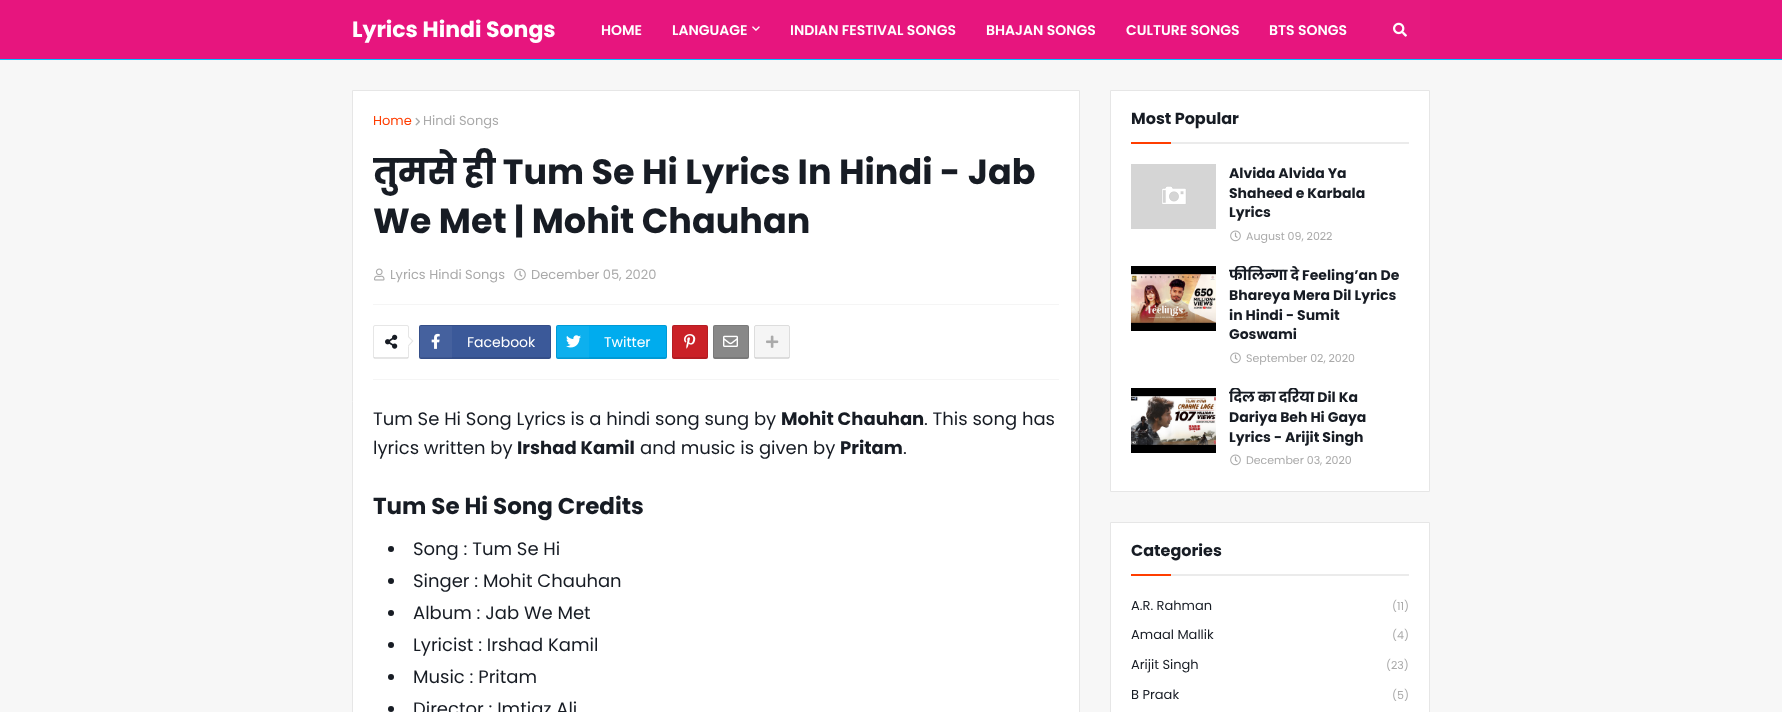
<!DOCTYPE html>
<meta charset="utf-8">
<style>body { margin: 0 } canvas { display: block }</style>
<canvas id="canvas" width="1782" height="712"></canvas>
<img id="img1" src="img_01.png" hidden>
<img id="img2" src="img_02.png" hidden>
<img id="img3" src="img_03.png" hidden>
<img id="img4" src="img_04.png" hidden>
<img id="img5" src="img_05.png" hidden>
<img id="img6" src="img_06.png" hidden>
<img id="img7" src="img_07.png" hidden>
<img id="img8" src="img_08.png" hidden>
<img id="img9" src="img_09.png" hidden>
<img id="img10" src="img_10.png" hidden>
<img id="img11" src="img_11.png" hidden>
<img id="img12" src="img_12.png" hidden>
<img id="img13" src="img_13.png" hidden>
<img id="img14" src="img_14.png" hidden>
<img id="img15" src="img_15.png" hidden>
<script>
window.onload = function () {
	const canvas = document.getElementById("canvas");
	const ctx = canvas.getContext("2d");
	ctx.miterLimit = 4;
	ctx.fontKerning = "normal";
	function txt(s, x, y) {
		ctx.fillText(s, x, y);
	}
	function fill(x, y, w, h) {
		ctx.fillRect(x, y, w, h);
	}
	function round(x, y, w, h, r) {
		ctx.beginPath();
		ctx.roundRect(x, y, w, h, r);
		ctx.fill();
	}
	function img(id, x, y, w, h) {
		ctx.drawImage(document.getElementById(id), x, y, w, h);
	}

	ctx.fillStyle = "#F7F7F7";
	fill(0, 0, 1782, 712);
	ctx.fillStyle = "#E7157E";
	fill(0, 0, 1782, 59);
	ctx.fillStyle = "#E5197F";
	fill(1370, 0, 60, 59);
	ctx.fillStyle = "#00C1FF";
	fill(0, 59, 1782, 1);
	ctx.fillStyle = "#05C0FC";
	fill(1370, 59, 60, 1);
	img("img1", 752, 26, 8, 5);
	img("img2", 1393, 22, 14, 15);
	ctx.fillStyle = "#FFFFFF";
	ctx.beginPath();
	ctx.rect(352.5, 90.5, 727, 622);
	ctx.fill();
	ctx.strokeStyle = "#E6E6E6";
	ctx.stroke();
	ctx.fillStyle = "#F5F5F5";
	fill(373, 379, 686, 1);
	img("img3", 415, 117, 5, 9);
	img("img4", 374, 268, 11, 13);
	img("img5", 514, 268, 12, 13);
	fill(373, 304, 686, 1);
	ctx.beginPath();
	ctx.roundRect(373.5, 325.5, 35, 33, 1.5);
	ctx.stroke();
	ctx.fillStyle = "rgba(0, 0, 0, 0.1)";
	fill(374, 357, 34, 1);
	img("img6", 385, 334, 13, 15);
	ctx.fillStyle = "#FFFFFF";
	ctx.beginPath();
	ctx.moveTo(408, 335.5);
	ctx.lineTo(413.5, 341);
	ctx.lineTo(408, 347);
	ctx.lineTo(402.5, 341);
	ctx.closePath();
	ctx.fill();
	ctx.fillStyle = "rgba(0, 0, 0, 0.1)";
	ctx.beginPath();
	ctx.moveTo(408, 335.5);
	ctx.lineTo(413.5, 341);
	ctx.lineTo(412, 341);
	ctx.lineTo(408, 337);
	ctx.closePath();
	ctx.fill();
	ctx.fillStyle = "#E5E5E5";
	ctx.beginPath();
	ctx.moveTo(413.5, 341);
	ctx.lineTo(408, 347);
	ctx.lineTo(408, 345.5);
	ctx.lineTo(412, 341);
	ctx.closePath();
	ctx.fill();
	ctx.fillStyle = "#3B5999";
	round(419, 325, 132, 34, 2);
	ctx.beginPath();
	ctx.roundRect(419.5, 325.5, 131, 33, 1.5);
	ctx.strokeStyle = "rgba(0, 0, 0, 0.1)";
	ctx.stroke();
	ctx.fillStyle = "rgba(0, 0, 0, 0.1)";
	fill(420, 357, 130, 1);
	ctx.fillStyle = "rgba(255, 255, 255, 0.05)";
	fill(420, 326, 32, 32);
	img("img7", 431, 333, 9, 16);
	ctx.fillStyle = "#00ACEE";
	round(556, 325, 111, 34, 2);
	ctx.beginPath();
	ctx.roundRect(556.5, 325.5, 110, 33, 1.5);
	ctx.stroke();
	ctx.fillStyle = "rgba(0, 0, 0, 0.1)";
	fill(557, 357, 109, 1);
	ctx.fillStyle = "rgba(255, 255, 255, 0.05)";
	fill(557, 326, 32, 32);
	img("img8", 566, 335, 15, 13);
	ctx.fillStyle = "#CA2127";
	round(672, 325, 36, 34, 2);
	ctx.beginPath();
	ctx.roundRect(672.5, 325.5, 35, 33, 1.5);
	ctx.stroke();
	ctx.fillStyle = "rgba(0, 0, 0, 0.1)";
	fill(673, 357, 34, 1);
	img("img9", 684, 334, 12, 15);
	ctx.fillStyle = "#888888";
	round(713, 325, 36, 34, 2);
	ctx.beginPath();
	ctx.roundRect(713.5, 325.5, 35, 33, 1.5);
	ctx.stroke();
	ctx.fillStyle = "rgba(0, 0, 0, 0.1)";
	fill(714, 357, 34, 1);
	img("img10", 723, 335, 15, 12);
	ctx.fillStyle = "#F5F5F5";
	ctx.beginPath();
	ctx.roundRect(754.5, 325.5, 35, 33, 1.5);
	ctx.fill();
	ctx.strokeStyle = "#DDDDDD";
	ctx.stroke();
	ctx.fillStyle = "rgba(0, 0, 0, 0.1)";
	fill(755, 357, 34, 1);
	img("img11", 766, 335, 13, 13);
	ctx.fillStyle = "#171C24";
	ctx.beginPath();
	ctx.arc(391, 549, 3, 0, Math.PI * 2);
	ctx.fill();
	ctx.beginPath();
	ctx.arc(391, 581, 3, 0, Math.PI * 2);
	ctx.fill();
	ctx.beginPath();
	ctx.arc(391, 613, 3, 0, Math.PI * 2);
	ctx.fill();
	ctx.beginPath();
	ctx.arc(391, 645, 3, 0, Math.PI * 2);
	ctx.fill();
	ctx.beginPath();
	ctx.arc(391, 677, 3, 0, Math.PI * 2);
	ctx.fill();
	ctx.beginPath();
	ctx.arc(391, 709, 3, 0, Math.PI * 2);
	ctx.fill();
	ctx.fillStyle = "#FFFFFF";
	ctx.beginPath();
	ctx.rect(1110.5, 90.5, 319, 401);
	ctx.fill();
	ctx.strokeStyle = "#E6E6E6";
	ctx.stroke();
	ctx.fillStyle = "#EBEBEB";
	fill(1171, 142, 238, 2);
	ctx.fillStyle = "#FF3D00";
	fill(1131, 142, 40, 2);
	img("img12", 1131, 164, 85, 65);
	img("img13", 1230, 230, 11, 12);
	img("img14", 1131, 266, 85, 65);
	img("img13", 1230, 352, 11, 12);
	img("img15", 1131, 388, 85, 65);
	img("img13", 1230, 454, 11, 12);
	ctx.fillStyle = "#FFFFFF";
	ctx.beginPath();
	ctx.rect(1110.5, 522.5, 319, 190);
	ctx.fill();
	ctx.stroke();
	ctx.fillStyle = "#EBEBEB";
	fill(1171, 574, 238, 2);
	ctx.fillStyle = "#FF3D00";
	fill(1131, 574, 40, 2);
	ctx.font = "bold 22px Poppins";
	ctx.fillStyle = "#FFFFFF";
	txt("Lyrics Hindi Songs", 352, 37);
	ctx.font = "600 14px Poppins";
	txt("HOME", 601, 35);
	txt("LANGUAGE", 672, 35);
	txt("INDIAN FESTIVAL SONGS", 790, 35);
	txt("BHAJAN SONGS", 986, 35);
	txt("CULTURE SONGS", 1126, 35);
	txt("BTS SONGS", 1269, 35);
	ctx.font = "13px Poppins";
	ctx.fillStyle = "#FF3D00";
	txt("Home", 373, 125);
	ctx.fillStyle = "#AAAAAA";
	txt("Hindi Songs", 423, 125);
	ctx.save();
	ctx.beginPath();
	ctx.rect(373, 111, 686, 268);
	ctx.clip();
	ctx.font = "bold 35px Poppins";
	ctx.fillStyle = "#171C24";
	txt("तुमसे ही Tum Se Hi Lyrics In Hindi - Jab", 373, 184);
	ctx.restore();
	ctx.font = "bold 35px Poppins";
	ctx.fillStyle = "#171C24";
	txt("We Met | Mohit Chauhan", 373, 233);
	ctx.font = "13px Poppins";
	ctx.fillStyle = "#AAAAAA";
	txt("Lyrics Hindi Songs", 390, 279);
	txt("December 05, 2020", 531, 279);
	ctx.font = "14px Poppins";
	ctx.fillStyle = "#FFFFFF";
	txt("Facebook", 467, 347);
	txt("Twitter", 604, 347);
	ctx.font = "18px Poppins";
	ctx.fillStyle = "#171C24";
	txt("Tum Se Hi Song Lyrics is a hindi song sung by", 373, 425);
	ctx.font = "bold 18px Poppins";
	txt("Mohit Chauhan", 781, 425);
	ctx.font = "18px Poppins";
	txt(". This song has", 924, 425);
	txt("lyrics written by", 373, 454);
	ctx.font = "bold 18px Poppins";
	txt("Irshad Kamil", 517, 454);
	ctx.font = "18px Poppins";
	txt("and music is given by", 640, 454);
	ctx.font = "bold 18px Poppins";
	txt("Pritam", 840, 454);
	ctx.font = "18px Poppins";
	txt(".", 903, 454);
	ctx.font = "bold 23px Poppins";
	txt("Tum Se Hi Song Credits", 373, 514);
	ctx.font = "18px Poppins";
	txt("Song : Tum Se Hi", 413, 555);
	txt("Singer : Mohit Chauhan", 413, 587);
	txt("Album : Jab We Met", 413, 619);
	txt("Lyricist : Irshad Kamil", 413, 651);
	txt("Music : Pritam", 413, 683);
	txt("Director : Imtiaz Ali", 413, 715);
	ctx.font = "bold 16px Poppins";
	txt("Most Popular", 1131, 124);
	ctx.font = "bold 14px Poppins";
	txt("Alvida Alvida Ya", 1229, 178);
	txt("Shaheed e Karbala", 1229, 198);
	txt("Lyrics", 1229, 217);
	ctx.font = "11px Poppins";
	ctx.fillStyle = "#AAAAAA";
	txt("August 09, 2022", 1246, 240);
	ctx.save();
	ctx.beginPath();
	ctx.rect(1229, 266, 180, 102);
	ctx.clip();
	ctx.font = "bold 14px Poppins";
	ctx.fillStyle = "#171C24";
	txt("फीलिन्गा दे Feeling’an De", 1229, 280);
	ctx.restore();
	ctx.font = "bold 14px Poppins";
	ctx.fillStyle = "#171C24";
	txt("Bhareya Mera Dil Lyrics", 1229, 300);
	txt("in Hindi - Sumit", 1229, 320);
	txt("Goswami", 1229, 339);
	ctx.font = "11px Poppins";
	ctx.fillStyle = "#AAAAAA";
	txt("September 02, 2020", 1246, 362);
	ctx.save();
	ctx.beginPath();
	ctx.rect(1229, 388, 180, 83);
	ctx.clip();
	ctx.font = "bold 14px Poppins";
	ctx.fillStyle = "#171C24";
	txt("दिल का दरिया Dil Ka", 1229, 402);
	ctx.restore();
	ctx.font = "bold 14px Poppins";
	ctx.fillStyle = "#171C24";
	txt("Dariya Beh Hi Gaya", 1229, 422);
	txt("Lyrics - Arijit Singh", 1229, 442);
	ctx.font = "11px Poppins";
	ctx.fillStyle = "#AAAAAA";
	txt("December 03, 2020", 1246, 464);
	ctx.font = "bold 16px Poppins";
	ctx.fillStyle = "#171C24";
	txt("Categories", 1131, 556);
	ctx.font = "13px Poppins";
	txt("A.R. Rahman", 1131, 610);
	ctx.font = "11px Poppins";
	ctx.fillStyle = "#AAAAAA";
	txt("(11)", 1392, 610);
	ctx.font = "13px Poppins";
	ctx.fillStyle = "#171C24";
	txt("Amaal Mallik", 1131, 639);
	ctx.font = "11px Poppins";
	ctx.fillStyle = "#AAAAAA";
	txt("(4)", 1392, 639);
	ctx.font = "13px Poppins";
	ctx.fillStyle = "#171C24";
	txt("Arijit Singh", 1131, 669);
	ctx.font = "11px Poppins";
	ctx.fillStyle = "#AAAAAA";
	txt("(23)", 1386, 669);
	ctx.font = "13px Poppins";
	ctx.fillStyle = "#171C24";
	txt("B Praak", 1131, 699);
	ctx.font = "11px Poppins";
	ctx.fillStyle = "#AAAAAA";
	txt("(5)", 1392, 699);
};
</script>
